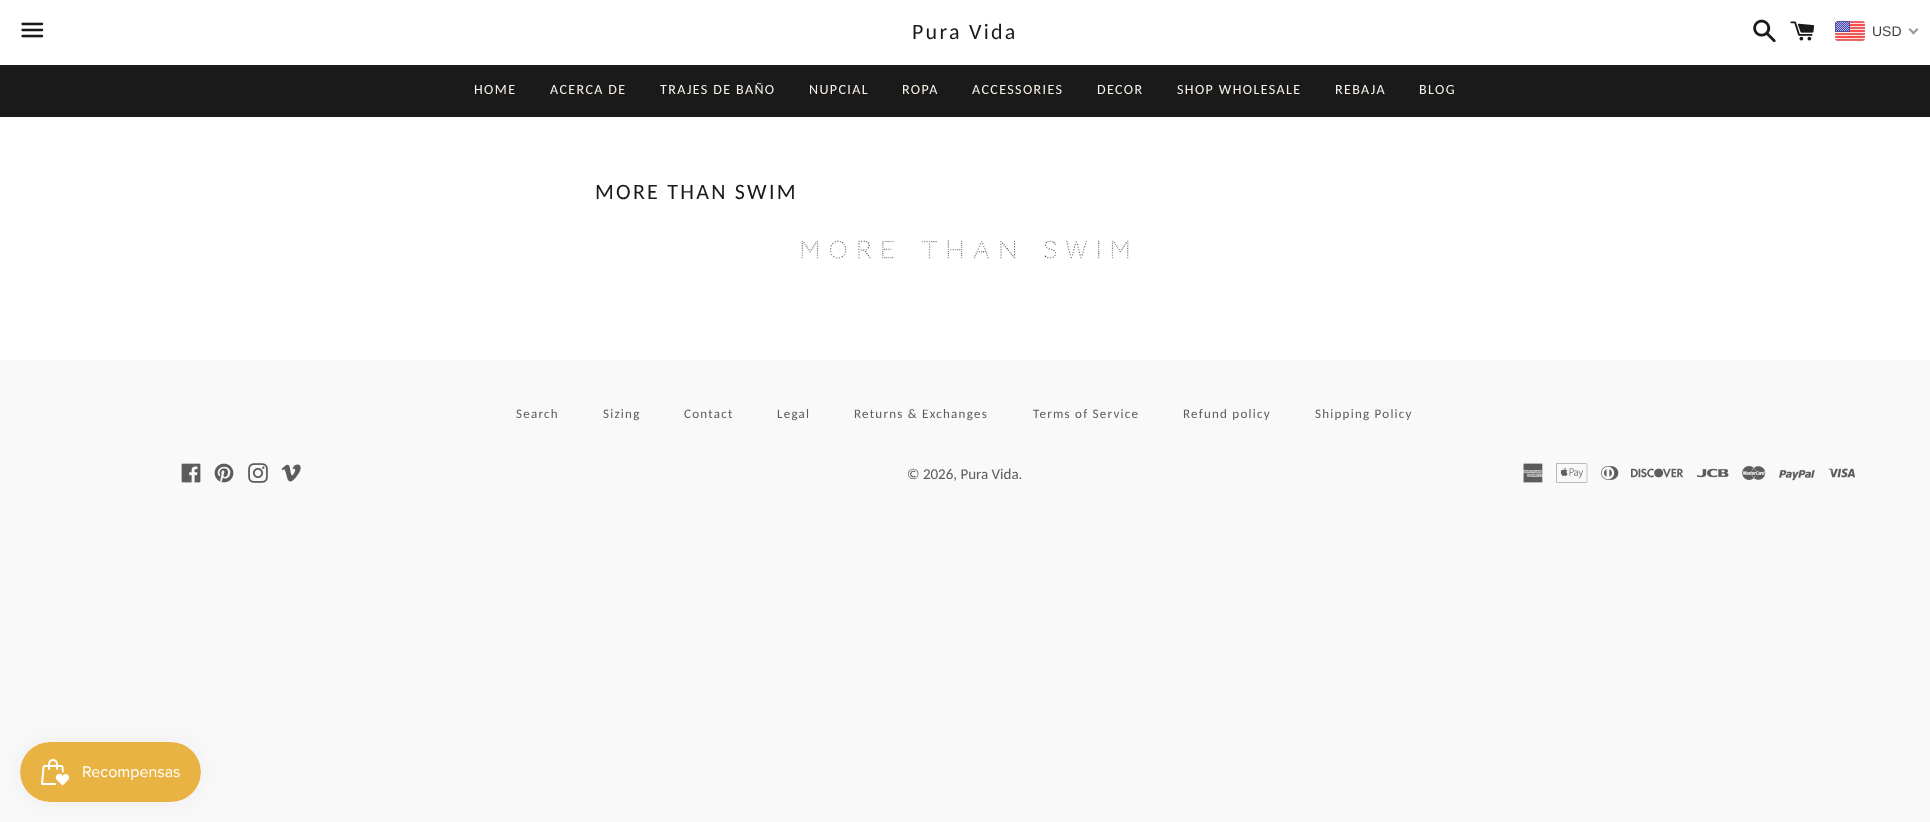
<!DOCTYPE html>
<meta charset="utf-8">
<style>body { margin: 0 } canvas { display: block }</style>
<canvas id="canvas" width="1930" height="822"></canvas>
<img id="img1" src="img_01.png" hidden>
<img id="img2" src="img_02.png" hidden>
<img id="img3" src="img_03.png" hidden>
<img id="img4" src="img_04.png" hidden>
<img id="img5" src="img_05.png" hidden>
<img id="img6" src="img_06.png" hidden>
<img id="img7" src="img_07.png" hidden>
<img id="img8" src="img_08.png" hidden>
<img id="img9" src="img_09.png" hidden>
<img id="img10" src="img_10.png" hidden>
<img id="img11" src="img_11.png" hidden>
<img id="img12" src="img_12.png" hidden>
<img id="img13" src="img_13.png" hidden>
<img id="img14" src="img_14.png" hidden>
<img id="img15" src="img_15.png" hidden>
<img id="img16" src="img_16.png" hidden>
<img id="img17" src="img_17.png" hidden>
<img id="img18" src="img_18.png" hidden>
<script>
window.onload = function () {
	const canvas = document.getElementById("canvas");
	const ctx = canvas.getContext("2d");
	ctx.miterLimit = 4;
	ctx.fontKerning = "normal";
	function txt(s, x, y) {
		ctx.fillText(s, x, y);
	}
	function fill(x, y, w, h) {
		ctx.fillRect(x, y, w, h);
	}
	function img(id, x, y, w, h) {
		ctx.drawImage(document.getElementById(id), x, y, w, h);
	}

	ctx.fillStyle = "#F9F9F9";
	fill(0, 0, 1930, 822);
	ctx.fillStyle = "#FFFFFF";
	fill(0, 0, 1930, 360);
	img("img1", 21, 22, 23, 16);
	img("img2", 1753, 19, 23, 24);
	img("img3", 1790, 21, 25, 20);
	img("img4", 1835, 21, 30, 20);
	ctx.fillStyle = "#999999";
	ctx.beginPath();
	ctx.moveTo(1917, 28);
	ctx.lineTo(1918.5, 29.5);
	ctx.lineTo(1913.5, 34.5);
	ctx.lineTo(1912, 33);
	ctx.closePath();
	ctx.fill();
	ctx.beginPath();
	ctx.moveTo(1910, 28);
	ctx.lineTo(1915, 33);
	ctx.lineTo(1913.5, 34.5);
	ctx.lineTo(1908.5, 29.5);
	ctx.closePath();
	ctx.fill();
	ctx.fillStyle = "#1A1A1A";
	fill(0, 65, 1930, 52);
	img("img5", 801, 240, 328, 19);
	img("img6", 181, 463, 20, 20);
	img("img7", 214, 463, 20, 20);
	img("img8", 248, 463, 20, 20);
	img("img9", 281, 464, 20, 18);
	img("img10", 1523, 463, 20, 20);
	img("img11", 1556, 463, 32, 20);
	img("img12", 1601, 466, 18, 14);
	img("img13", 1631, 468, 53, 10);
	img("img14", 1697, 468, 32, 10);
	img("img15", 1742, 466, 24, 14);
	img("img16", 1779, 470, 36, 11);
	img("img17", 1828, 468, 27, 10);
	ctx.fillStyle = "rgba(0, 0, 0, 0.05)";
	ctx.filter = "blur(12.5px)";
	ctx.beginPath();
	ctx.roundRect(20, 742, 181, 60, 30);
	ctx.fill();
	ctx.filter = "none";
	img("img18", 20, 742, 181, 60);
	ctx.letterSpacing = "2.25px";
	ctx.font = "22px Carlito";
	ctx.fillStyle = "#1A1A1A";
	txt("Pura Vida", 912, 39);
	ctx.letterSpacing = "0px";
	ctx.font = "14px Liberation Sans";
	ctx.fillStyle = "#403F3F";
	txt("USD", 1872, 36);
	ctx.letterSpacing = "1.4px";
	ctx.font = "14px Carlito";
	ctx.fillStyle = "#F8F2E8";
	txt("HOME", 474, 94);
	txt("ACERCA DE", 550, 94);
	txt("TRAJES DE BAÑO", 660, 94);
	txt("NUPCIAL", 809, 94);
	txt("ROPA", 902, 94);
	txt("ACCESSORIES", 972, 94);
	txt("DECOR", 1097, 94);
	txt("SHOP WHOLESALE", 1177, 94);
	txt("REBAJA", 1335, 94);
	txt("BLOG", 1419, 94);
	ctx.letterSpacing = "2.25px";
	ctx.font = "22px Carlito";
	ctx.fillStyle = "#1A1A1A";
	txt("MORE THAN SWIM", 595, 199);
	ctx.letterSpacing = "1.25px";
	ctx.font = "13px Carlito";
	ctx.fillStyle = "#5C5C5C";
	txt("Search", 516, 418);
	txt("Sizing", 603, 418);
	txt("Contact", 684, 418);
	txt("Legal", 777, 418);
	txt("Returns & Exchanges", 854, 418);
	txt("Terms of Service", 1033, 418);
	txt("Refund policy", 1183, 418);
	txt("Shipping Policy", 1315, 418);
	ctx.letterSpacing = "0px";
	ctx.font = "15px Carlito";
	txt("© 2026, Pura Vida.", 907, 479);
};
</script>
